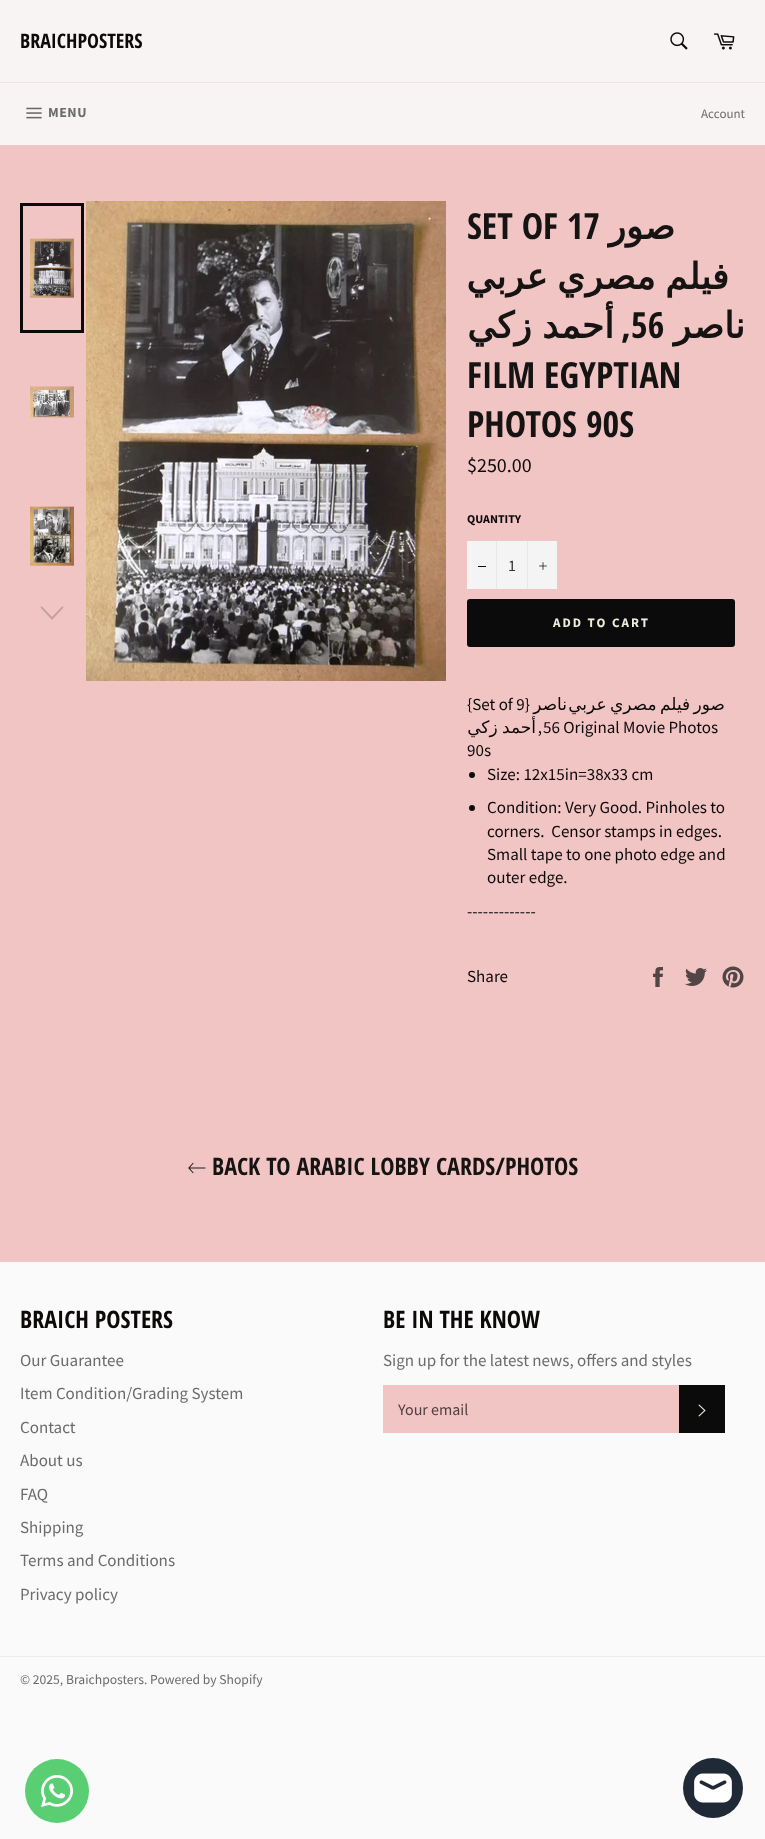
<!DOCTYPE html>
<meta charset="utf-8">
<style>body { margin: 0 } canvas { display: block }</style>
<canvas id="canvas" width="765" height="1839"></canvas>
<img id="img1" src="img_01.png" hidden>
<img id="img2" src="img_02.png" hidden>
<img id="img3" src="img_03.png" hidden>
<img id="img4" src="img_04.png" hidden>
<img id="img5" src="img_05.png" hidden>
<img id="img6" src="img_06.png" hidden>
<img id="img7" src="img_07.png" hidden>
<img id="img8" src="img_08.png" hidden>
<img id="img9" src="img_09.png" hidden>
<img id="img10" src="img_10.png" hidden>
<img id="img11" src="img_11.png" hidden>
<img id="img12" src="img_12.png" hidden>
<img id="img13" src="img_13.png" hidden>
<img id="img14" src="img_14.png" hidden>
<img id="img15" src="img_15.png" hidden>
<script>
window.onload = function () {
	const canvas = document.getElementById("canvas");
	const ctx = canvas.getContext("2d");
	ctx.miterLimit = 4;
	ctx.fontKerning = "normal";
	function txt(s, x, y) {
		ctx.fillText(s, x, y);
	}
	function fill(x, y, w, h) {
		ctx.fillRect(x, y, w, h);
	}
	function round(x, y, w, h, r) {
		ctx.beginPath();
		ctx.roundRect(x, y, w, h, r);
		ctx.fill();
	}
	function img(id, x, y, w, h) {
		ctx.drawImage(document.getElementById(id), x, y, w, h);
	}

	ctx.fillStyle = "#FAFAFA";
	fill(0, 0, 765, 1839);
	ctx.fillStyle = "#F2C5C5";
	fill(0, 145, 765, 1117);
	ctx.fillStyle = "#F8F4F4";
	fill(0, 0, 765, 82);
	img("img1", 670, 32, 18, 18);
	img("img2", 713, 33, 22, 17);
	fill(0, 83, 765, 62);
	ctx.fillStyle = "#EEE4E4";
	fill(0, 82, 765, 1);
	img("img3", 26, 107, 16, 12);
	img("img4", 30, 238, 44, 60);
	ctx.strokeStyle = "#0C0B0B";
	ctx.lineWidth = 3;
	ctx.strokeRect(21.5, 204.5, 61, 127);
	img("img5", 30, 386, 44, 32);
	img("img6", 30, 506, 44, 60);
	ctx.fillStyle = "#C4A0A0";
	ctx.beginPath();
	ctx.moveTo(62.5, 606);
	ctx.lineTo(63.5, 607.5);
	ctx.lineTo(52, 620);
	ctx.lineTo(40.5, 607.5);
	ctx.lineTo(41.5, 606);
	ctx.lineTo(52, 617);
	ctx.closePath();
	ctx.fill();
	img("img7", 86, 201, 360, 480);
	ctx.fillStyle = "#F4F4F4";
	fill(467, 541, 90, 48);
	ctx.fillStyle = "#E7E7E7";
	fill(496, 541, 1, 48);
	ctx.fillStyle = "#0D0D0D";
	fill(478, 566, 8, 1);
	ctx.fillStyle = "#E7E7E7";
	fill(527, 541, 1, 48);
	img("img8", 539, 562, 8, 8);
	ctx.fillStyle = "#0C0B0B";
	round(467, 599, 268, 48, 3);
	ctx.fillStyle = "#0D0D0D";
	ctx.beginPath();
	ctx.arc(472, 775, 3, 0, Math.PI * 2);
	ctx.fill();
	ctx.beginPath();
	ctx.arc(472, 808, 3, 0, Math.PI * 2);
	ctx.fill();
	img("img9", 653, 967, 10, 20);
	img("img10", 685, 968, 22, 18);
	img("img11", 722, 966, 22, 22);
	img("img12", 188, 1162, 18, 12);
	ctx.fillStyle = "#F2C5C5";
	fill(383, 1385, 296, 48);
	ctx.fillStyle = "#0C0B0B";
	fill(679, 1385, 46, 48);
	img("img13", 698, 1404, 8, 13);
	ctx.fillStyle = "#EDEDED";
	fill(0, 1656, 765, 1);
	ctx.fillStyle = "#59CE72";
	ctx.beginPath();
	ctx.arc(57, 1791, 32, 0, Math.PI * 2);
	ctx.fill();
	img("img14", 41, 1775, 32, 32);
	ctx.fillStyle = "#202A36";
	ctx.beginPath();
	ctx.arc(713, 1788, 30, 0, Math.PI * 2);
	ctx.fill();
	img("img15", 694, 1773, 38, 30);
	ctx.font = "bold 20px Open Sans Condensed";
	ctx.fillStyle = "#0D0909";
	txt("BRAICHPOSTERS", 20, 48);
	ctx.letterSpacing = "0.5px";
	ctx.font = "bold 14px Source Sans Pro";
	ctx.fillStyle = "#6C6C6C";
	txt("MENU", 48, 117);
	ctx.letterSpacing = "0px";
	ctx.font = "13px Source Sans Pro";
	txt("Account", 701, 118);
	ctx.font = "bold 36px Open Sans Condensed";
	ctx.fillStyle = "#161313";
	txt("SET OF 17", 467, 239);
	ctx.direction = "rtl";
	ctx.font = "bold 36px DejaVu Sans";
	txt("صور", 675, 239);
	ctx.wordSpacing = "-2px";
	txt("فيلم مصري عربي", 729, 289);
	ctx.wordSpacing = "-1px";
	txt("أحمد زكي", 614, 338);
	ctx.wordSpacing = "0px";
	ctx.font = "bold 36px Open Sans Condensed";
	txt(",", 631, 338);
	ctx.direction = "ltr";
	txt("56", 631, 338);
	ctx.direction = "rtl";
	ctx.font = "bold 36px DejaVu Sans";
	txt("ناصر", 745, 338);
	ctx.direction = "ltr";
	ctx.font = "bold 36px Open Sans Condensed";
	txt("FILM EGYPTIAN", 467, 388);
	txt("PHOTOS 90S", 467, 437);
	ctx.font = "20px Source Sans Pro";
	ctx.fillStyle = "#0D0909";
	txt("$250.00", 467, 472);
	ctx.font = "bold 12px Source Sans Pro";
	txt("QUANTITY", 467, 523);
	ctx.font = "16px Source Sans Pro";
	ctx.fillStyle = "#333333";
	txt("1", 508, 571);
	ctx.letterSpacing = "2px";
	ctx.font = "bold 13px Source Sans Pro";
	ctx.fillStyle = "#EDECDD";
	txt("ADD TO CART", 553, 627);
	ctx.letterSpacing = "0px";
	ctx.font = "17px Source Sans Pro";
	ctx.fillStyle = "#0D0909";
	txt("{Set of 9}", 467, 710);
	ctx.direction = "rtl";
	ctx.font = "17px DejaVu Sans";
	txt("ناصر", 567, 710);
	ctx.wordSpacing = "-2px";
	txt("صور فيلم مصري عربي", 725, 710);
	ctx.wordSpacing = "-1px";
	txt("أحمد زكي", 536, 733);
	ctx.wordSpacing = "0px";
	ctx.font = "17px Source Sans Pro";
	txt(",", 542, 733);
	ctx.direction = "ltr";
	txt("56 Original Movie Photos", 543, 733);
	txt("90s", 467, 756);
	txt("Size: 12x15in=38x33 cm", 487, 780);
	txt("Condition: Very Good. Pinholes to", 487, 813);
	txt("corners.  Censor stamps in edges.", 487, 837);
	txt("Small tape to one photo edge and", 487, 860);
	txt("outer edge.", 487, 883);
	txt("-------------", 467, 917);
	txt("Share", 467, 982);
	ctx.font = "bold 24px Open Sans Condensed";
	ctx.fillStyle = "#161313";
	txt("BACK TO ARABIC LOBBY CARDS/PHOTOS", 212, 1175);
	ctx.fillStyle = "#0D0909";
	txt("BRAICH POSTERS", 20, 1328);
	ctx.font = "17px Source Sans Pro";
	ctx.fillStyle = "#6C6C6C";
	txt("Our Guarantee", 20, 1366);
	txt("Item Condition/Grading System", 20, 1399);
	txt("Contact", 20, 1433);
	txt("About us", 20, 1466);
	txt("FAQ", 20, 1500);
	txt("Shipping", 20, 1533);
	txt("Terms and Conditions", 20, 1566);
	txt("Privacy policy", 20, 1600);
	ctx.font = "bold 24px Open Sans Condensed";
	ctx.fillStyle = "#0D0909";
	txt("BE IN THE KNOW", 383, 1328);
	ctx.font = "17px Source Sans Pro";
	ctx.fillStyle = "#6C6C6C";
	txt("Sign up for the latest news, offers and styles", 383, 1366);
	ctx.font = "16px Source Sans Pro";
	ctx.fillStyle = "#504141";
	txt("Your email", 398, 1415);
	ctx.font = "13.6px Source Sans Pro";
	ctx.fillStyle = "#6C6C6C";
	txt("© 2025, Braichposters. Powered by Shopify", 20, 1684);
};
</script>
